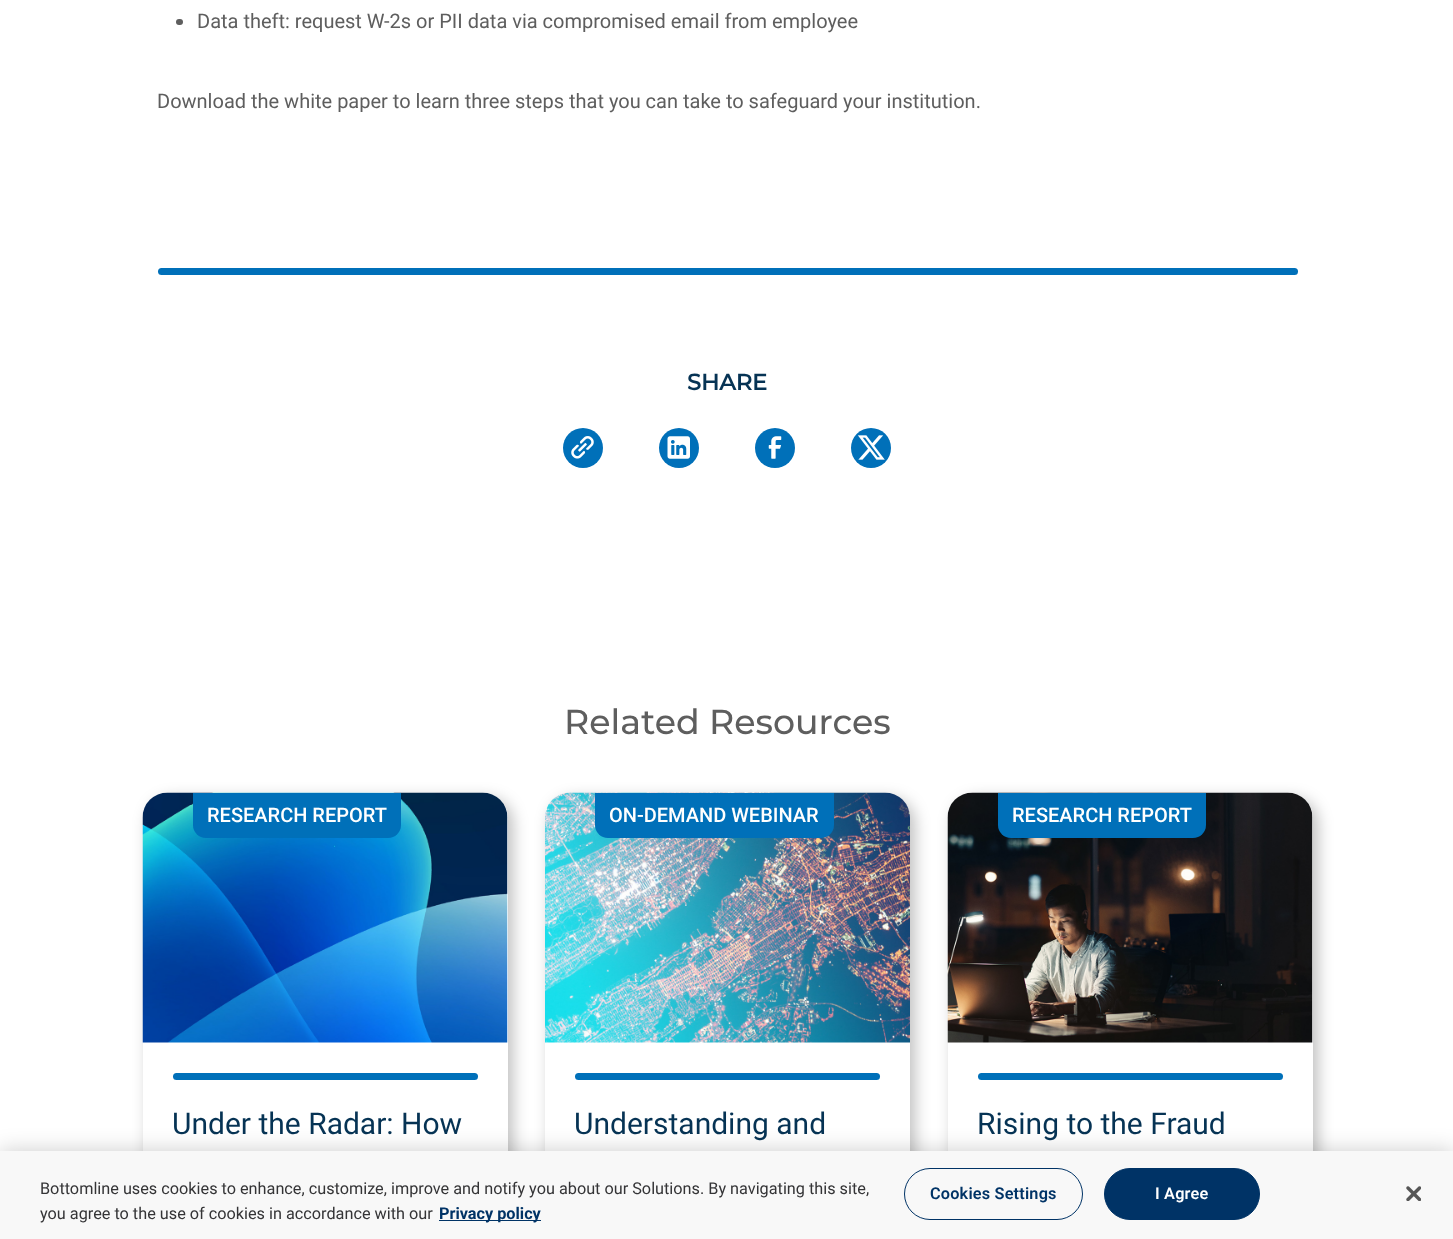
<!DOCTYPE html>
<meta charset="utf-8">
<style>body { margin: 0 } canvas { display: block }</style>
<canvas id="canvas" width="1453" height="1239"></canvas>
<img id="img1" src="img_01.png" hidden>
<img id="img2" src="img_02.png" hidden>
<img id="img3" src="img_03.png" hidden>
<img id="img4" src="img_04.png" hidden>
<img id="img5" src="img_05.png" hidden>
<img id="img6" src="img_06.png" hidden>
<img id="img7" src="img_07.png" hidden>
<img id="img8" src="img_08.png" hidden>
<script>
window.onload = function () {
	const canvas = document.getElementById("canvas");
	const ctx = canvas.getContext("2d");
	ctx.miterLimit = 4;
	ctx.fontKerning = "normal";
	function txt(s, x, y) {
		ctx.fillText(s, x, y);
	}
	function fill(x, y, w, h) {
		ctx.fillRect(x, y, w, h);
	}
	function round(x, y, w, h, r) {
		ctx.beginPath();
		ctx.roundRect(x, y, w, h, r);
		ctx.fill();
	}
	function img(id, x, y, w, h) {
		ctx.drawImage(document.getElementById(id), x, y, w, h);
	}

	ctx.fillStyle = "#FFFFFF";
	fill(0, 0, 1453, 1239);
	ctx.fillStyle = "#5E5E5E";
	round(176, 19, 7, 6, 3);
	ctx.fillStyle = "#0070B9";
	round(158, 268, 1140, 7, 3.5);
	ctx.beginPath();
	ctx.arc(583, 448, 20, 0, Math.PI * 2);
	ctx.fill();
	img("img1", 571, 436, 23, 23);
	ctx.beginPath();
	ctx.arc(679, 448, 20, 0, Math.PI * 2);
	ctx.fill();
	img("img2", 667, 436, 23, 23);
	ctx.beginPath();
	ctx.arc(775, 448, 20, 0, Math.PI * 2);
	ctx.fill();
	img("img3", 768, 436, 14, 23);
	ctx.beginPath();
	ctx.arc(871, 448, 20, 0, Math.PI * 2);
	ctx.fill();
	img("img4", 858, 435, 27, 25);
	ctx.save();
	ctx.beginPath();
	ctx.moveTo(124, 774);
	ctx.lineTo(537, 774);
	ctx.lineTo(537, 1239);
	ctx.lineTo(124, 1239);
	ctx.closePath();
	ctx.moveTo(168, 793);
	ctx.lineTo(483, 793);
	ctx.bezierCurveTo(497, 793, 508, 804, 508, 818);
	ctx.lineTo(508, 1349);
	ctx.bezierCurveTo(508, 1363, 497, 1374, 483, 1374);
	ctx.lineTo(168, 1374);
	ctx.bezierCurveTo(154, 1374, 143, 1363, 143, 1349);
	ctx.lineTo(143, 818);
	ctx.bezierCurveTo(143, 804, 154, 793, 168, 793);
	ctx.closePath();
	ctx.clip("evenodd");
	ctx.fillStyle = "rgba(0, 0, 0, 0.25)";
	ctx.filter = "blur(7.5px)";
	ctx.beginPath();
	ctx.roundRect(148, 798, 365, 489, 25);
	ctx.fill();
	ctx.filter = "none";
	ctx.restore();
	img("img5", 142, 792, 366, 251);
	ctx.beginPath();
	ctx.roundRect(193, 793, 208, 45, [0, 0, 13, 13]);
	ctx.fill();
	round(173, 1073, 305, 7, 3.5);
	ctx.save();
	ctx.beginPath();
	ctx.moveTo(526, 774);
	ctx.lineTo(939, 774);
	ctx.lineTo(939, 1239);
	ctx.lineTo(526, 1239);
	ctx.closePath();
	ctx.moveTo(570, 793);
	ctx.lineTo(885, 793);
	ctx.bezierCurveTo(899, 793, 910, 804, 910, 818);
	ctx.lineTo(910, 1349);
	ctx.bezierCurveTo(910, 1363, 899, 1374, 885, 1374);
	ctx.lineTo(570, 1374);
	ctx.bezierCurveTo(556, 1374, 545, 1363, 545, 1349);
	ctx.lineTo(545, 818);
	ctx.bezierCurveTo(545, 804, 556, 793, 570, 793);
	ctx.closePath();
	ctx.clip("evenodd");
	ctx.fillStyle = "rgba(0, 0, 0, 0.25)";
	ctx.filter = "blur(7.5px)";
	ctx.beginPath();
	ctx.roundRect(550, 798, 365, 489, 25);
	ctx.fill();
	ctx.filter = "none";
	ctx.restore();
	img("img6", 545, 792, 365, 251);
	ctx.beginPath();
	ctx.roundRect(595, 793, 239, 45, [0, 0, 13, 13]);
	ctx.fill();
	round(575, 1073, 305, 7, 3.5);
	ctx.save();
	ctx.beginPath();
	ctx.moveTo(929, 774);
	ctx.lineTo(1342, 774);
	ctx.lineTo(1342, 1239);
	ctx.lineTo(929, 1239);
	ctx.closePath();
	ctx.moveTo(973, 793);
	ctx.lineTo(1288, 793);
	ctx.bezierCurveTo(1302, 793, 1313, 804, 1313, 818);
	ctx.lineTo(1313, 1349);
	ctx.bezierCurveTo(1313, 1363, 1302, 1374, 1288, 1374);
	ctx.lineTo(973, 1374);
	ctx.bezierCurveTo(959, 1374, 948, 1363, 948, 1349);
	ctx.lineTo(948, 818);
	ctx.bezierCurveTo(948, 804, 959, 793, 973, 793);
	ctx.closePath();
	ctx.clip("evenodd");
	ctx.fillStyle = "rgba(0, 0, 0, 0.25)";
	ctx.filter = "blur(7.5px)";
	ctx.beginPath();
	ctx.roundRect(953, 798, 365, 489, 25);
	ctx.fill();
	ctx.filter = "none";
	ctx.restore();
	img("img7", 947, 792, 366, 251);
	ctx.beginPath();
	ctx.roundRect(998, 793, 208, 45, [0, 0, 13, 13]);
	ctx.fill();
	round(978, 1073, 305, 7, 3.5);
	ctx.fillStyle = "rgba(0, 0, 0, 0.2)";
	ctx.filter = "blur(11px)";
	ctx.beginPath();
	ctx.rect(0, 1151, 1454, 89);
	ctx.fill();
	ctx.filter = "none";
	ctx.fillStyle = "#F8F8F8";
	fill(0, 1151, 1453, 88);
	ctx.fillStyle = "#003366";
	fill(439, 1220, 102, 1);
	ctx.beginPath();
	ctx.roundRect(904.5, 1168.5, 178, 51, 25.5);
	ctx.strokeStyle = "#003366";
	ctx.stroke();
	ctx.beginPath();
	ctx.roundRect(1104.5, 1168.5, 155, 51, 25.5);
	ctx.fill();
	ctx.stroke();
	img("img8", 1406, 1186, 15, 15);
	ctx.font = "20px Roboto";
	ctx.fillStyle = "#5E5E5E";
	txt("Data theft: request W-2s or PII data via compromised email from employee", 197, 28);
	txt("Download the white paper to learn three steps that you can take to safeguard your institution.", 157, 108);
	ctx.font = "bold 22.5px Montserrat";
	ctx.fillStyle = "#063354";
	txt("SHARE", 687, 390);
	ctx.font = "100 34.75px Montserrat";
	ctx.fillStyle = "#5E5E5E";
	txt("Related Resources", 564, 734);
	ctx.font = "500 20px Roboto";
	ctx.fillStyle = "#FFFFFF";
	txt("RESEARCH REPORT", 207, 822);
	ctx.font = "30px Roboto";
	ctx.fillStyle = "#063354";
	txt("Under the Radar: How", 172, 1134);
	ctx.font = "500 20px Roboto";
	ctx.fillStyle = "#FFFFFF";
	txt("ON-DEMAND WEBINAR", 609, 822);
	ctx.font = "30px Roboto";
	ctx.fillStyle = "#063354";
	txt("Understanding and", 574, 1134);
	ctx.font = "500 20px Roboto";
	ctx.fillStyle = "#FFFFFF";
	txt("RESEARCH REPORT", 1012, 822);
	ctx.font = "30px Roboto";
	ctx.fillStyle = "#063354";
	txt("Rising to the Fraud", 977, 1134);
	ctx.font = "16.25px Roboto";
	ctx.fillStyle = "#343436";
	txt("Bottomline uses cookies to enhance, customize, improve and notify you about our Solutions. By navigating this site,", 40, 1194);
	txt("you agree to the use of cookies in accordance with our", 40, 1219);
	ctx.font = "bold 16.25px Roboto";
	ctx.fillStyle = "#003366";
	txt("Privacy policy", 439, 1219);
	ctx.letterSpacing = "0.2px";
	ctx.font = "600 16.25px Roboto";
	txt("Cookies Settings", 930, 1199);
	ctx.fillStyle = "#FFFFFF";
	txt("I Agree", 1155, 1199);
};
</script>
